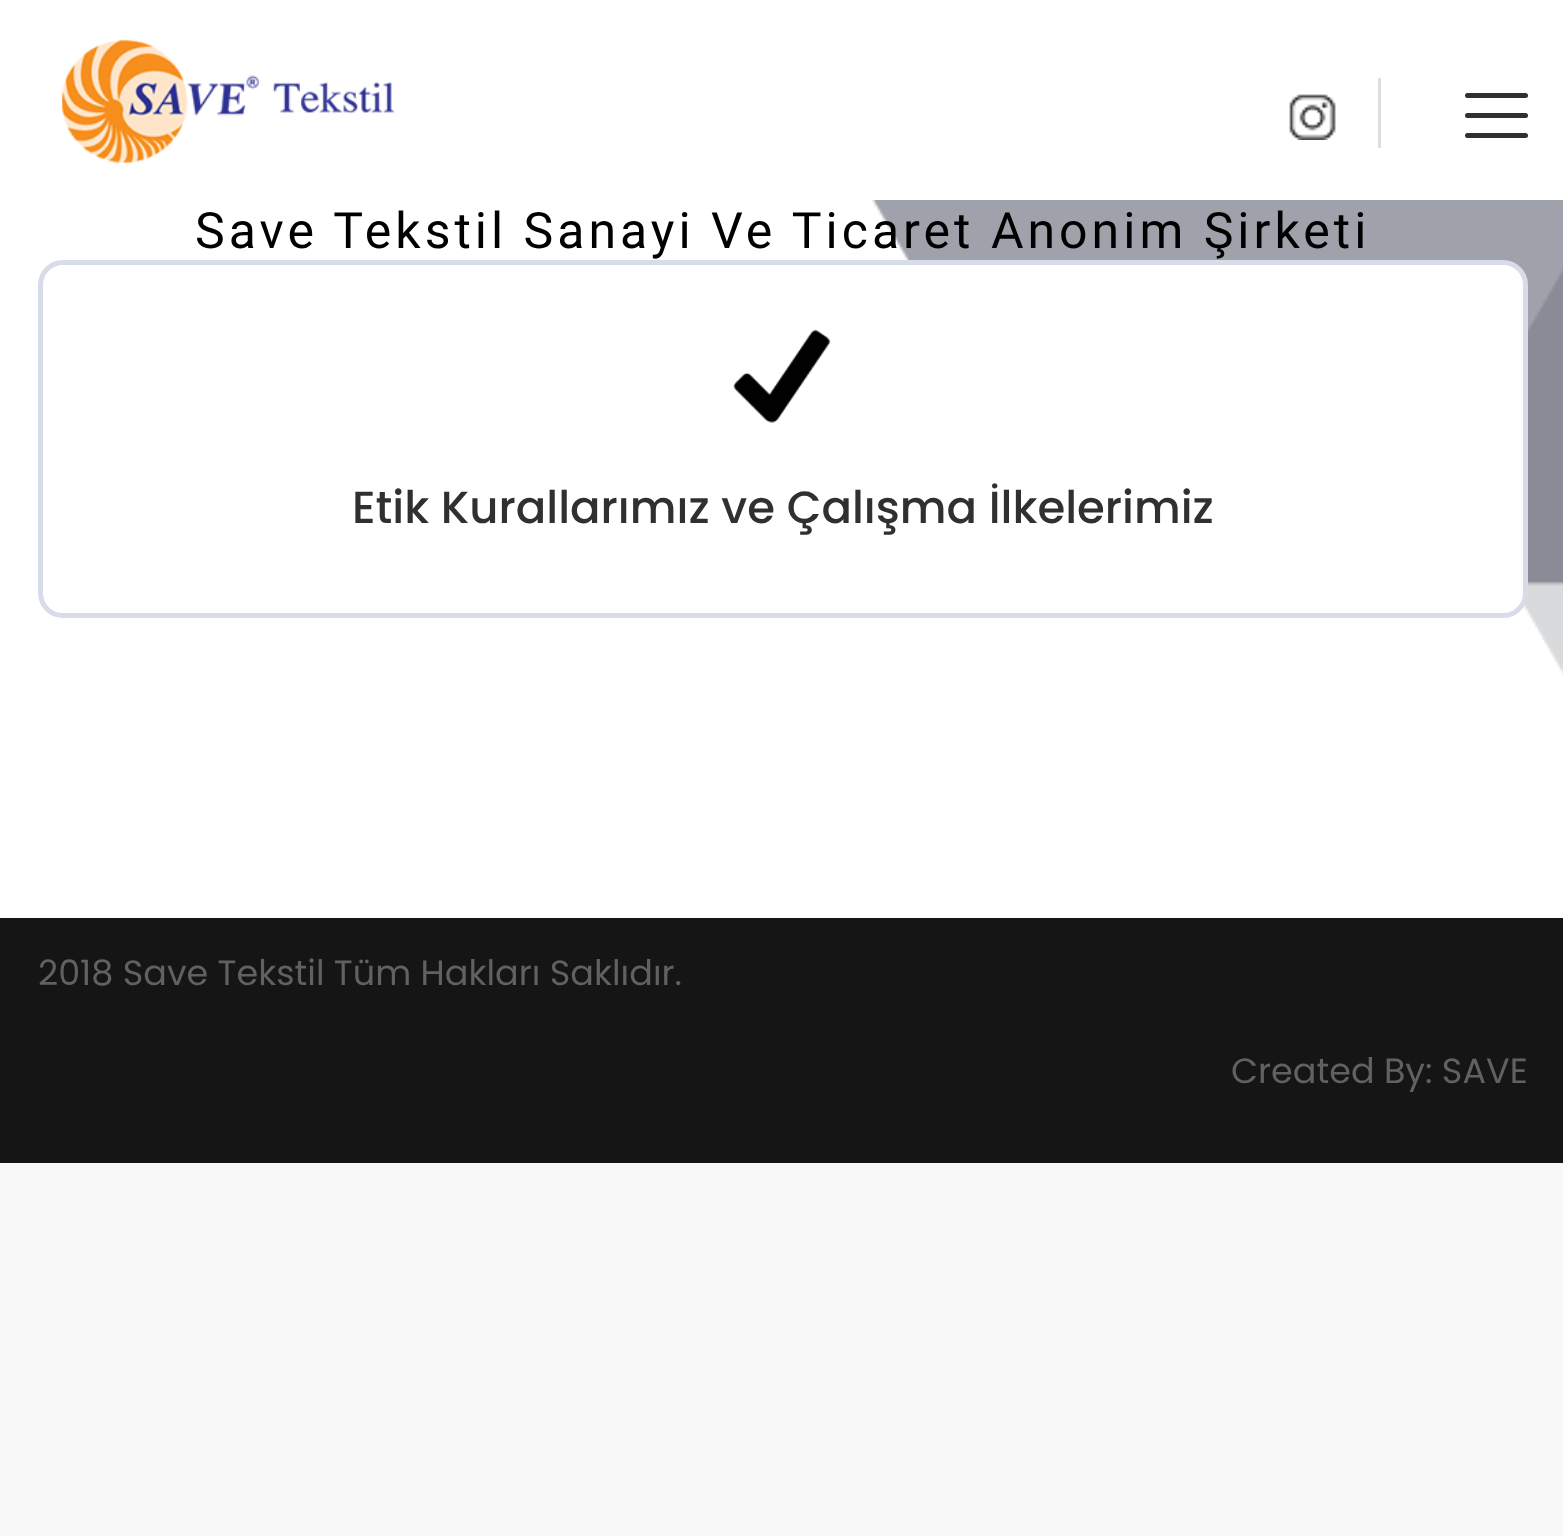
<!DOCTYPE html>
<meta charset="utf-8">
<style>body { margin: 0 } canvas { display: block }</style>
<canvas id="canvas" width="1563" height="1536"></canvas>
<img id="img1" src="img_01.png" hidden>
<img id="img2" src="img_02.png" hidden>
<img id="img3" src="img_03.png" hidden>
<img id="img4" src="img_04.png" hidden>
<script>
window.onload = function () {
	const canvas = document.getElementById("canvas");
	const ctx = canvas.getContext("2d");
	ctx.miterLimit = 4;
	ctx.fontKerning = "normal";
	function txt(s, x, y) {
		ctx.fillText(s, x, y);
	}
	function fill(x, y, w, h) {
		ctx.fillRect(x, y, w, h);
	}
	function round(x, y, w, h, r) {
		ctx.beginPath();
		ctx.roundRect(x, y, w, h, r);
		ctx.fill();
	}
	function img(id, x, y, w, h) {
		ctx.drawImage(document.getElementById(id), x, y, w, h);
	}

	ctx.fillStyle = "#F8F8F8";
	fill(0, 0, 1563, 1536);
	ctx.fillStyle = "#FFFFFF";
	fill(0, 0, 1563, 918);
	img("img1", 61, 39, 334, 124);
	ctx.fillStyle = "#DFDEDE";
	fill(1378, 78, 3, 70);
	img("img2", 1289, 94, 47, 46);
	ctx.fillStyle = "#303030";
	round(1465, 93, 63, 5, 2.5);
	round(1465, 113, 63, 5, 2.5);
	round(1465, 133, 63, 5, 2.5);
	img("img3", 872, 200, 691, 475);
	ctx.fillStyle = "#FFFFFF";
	ctx.beginPath();
	ctx.roundRect(40.5, 262.5, 1485, 353, 22.5);
	ctx.fill();
	ctx.strokeStyle = "#D7DCE8";
	ctx.lineWidth = 5;
	ctx.stroke();
	img("img4", 733, 329, 98, 94);
	ctx.fillStyle = "#151515";
	fill(0, 918, 1563, 245);
	ctx.letterSpacing = "4px";
	ctx.font = "50px Roboto";
	ctx.fillStyle = "#000000";
	txt("Save Tekstil Sanayi Ve Ticaret Anonim Şirketi", 195, 248);
	ctx.letterSpacing = "0px";
	ctx.font = "500 45px Poppins";
	ctx.fillStyle = "#303030";
	txt("Etik Kurallarımız ve Çalışma İlkelerimiz", 352, 523);
	ctx.font = "35px Poppins";
	ctx.fillStyle = "#616161";
	txt("2018 Save Tekstil Tüm Hakları Saklıdır.", 38, 985);
	txt("Created By: SAVE", 1231, 1083);
};
</script>
